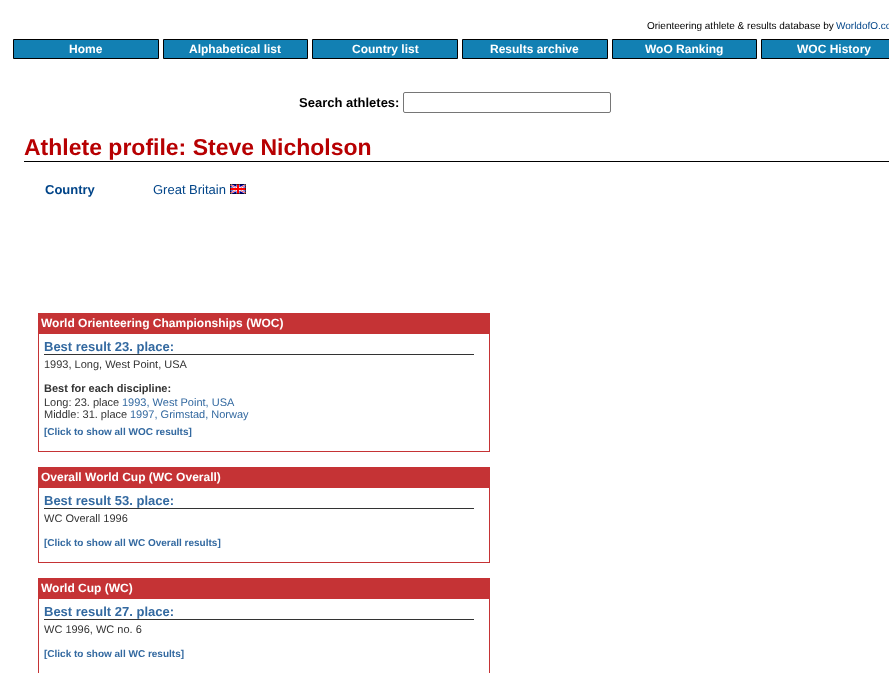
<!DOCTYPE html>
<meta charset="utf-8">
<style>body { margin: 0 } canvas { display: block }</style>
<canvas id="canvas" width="889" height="673"></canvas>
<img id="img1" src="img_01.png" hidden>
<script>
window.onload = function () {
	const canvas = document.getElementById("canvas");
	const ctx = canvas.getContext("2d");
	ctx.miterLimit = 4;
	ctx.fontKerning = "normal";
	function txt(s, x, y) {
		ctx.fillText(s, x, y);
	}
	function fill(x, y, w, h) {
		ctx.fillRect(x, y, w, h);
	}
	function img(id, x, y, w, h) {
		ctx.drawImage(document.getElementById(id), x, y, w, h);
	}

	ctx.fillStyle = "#FFFFFF";
	fill(0, 0, 889, 673);
	ctx.fillStyle = "#1280B3";
	ctx.beginPath();
	ctx.rect(13.5, 39.5, 145, 19);
	ctx.fill();
	ctx.strokeStyle = "#000000";
	ctx.stroke();
	ctx.beginPath();
	ctx.rect(163.5, 39.5, 144, 19);
	ctx.fill();
	ctx.stroke();
	ctx.beginPath();
	ctx.rect(312.5, 39.5, 145, 19);
	ctx.fill();
	ctx.stroke();
	ctx.beginPath();
	ctx.rect(462.5, 39.5, 145, 19);
	ctx.fill();
	ctx.stroke();
	ctx.beginPath();
	ctx.rect(612.5, 39.5, 144, 19);
	ctx.fill();
	ctx.stroke();
	ctx.beginPath();
	ctx.rect(761.5, 39.5, 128, 19);
	ctx.fill();
	ctx.stroke();
	ctx.beginPath();
	ctx.roundRect(403.5, 92.5, 207, 20, 1.5);
	ctx.strokeStyle = "#767676";
	ctx.stroke();
	ctx.fillStyle = "#000000";
	fill(24, 161, 865, 1);
	img("img1", 230, 184, 16, 10);
	ctx.strokeStyle = "#C53335";
	ctx.strokeRect(38.5, 313.5, 451, 138);
	ctx.fillStyle = "#C53335";
	fill(39, 314, 450, 20);
	ctx.fillStyle = "#333333";
	fill(44, 354, 430, 1);
	ctx.strokeRect(38.5, 467.5, 451, 95);
	ctx.fillStyle = "#C53335";
	fill(39, 468, 450, 20);
	ctx.fillStyle = "#333333";
	fill(44, 508, 430, 1);
	ctx.strokeRect(38.5, 578.5, 451, 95);
	ctx.fillStyle = "#C53335";
	fill(39, 579, 450, 20);
	ctx.fillStyle = "#333333";
	fill(44, 619, 430, 1);
	ctx.font = "10px Liberation Sans";
	ctx.fillStyle = "#000000";
	txt("Orienteering athlete & results database by", 647, 29);
	ctx.fillStyle = "#004488";
	txt("WorldofO.co", 836, 29);
	ctx.font = "bold 12px Liberation Sans";
	ctx.fillStyle = "#FFFFFF";
	txt("Home", 69, 53);
	txt("Alphabetical list", 189, 53);
	txt("Country list", 352, 53);
	txt("Results archive", 490, 53);
	txt("WoO Ranking", 645, 53);
	txt("WOC History", 797, 53);
	ctx.font = "bold 13px Liberation Sans";
	ctx.fillStyle = "#000000";
	txt("Search athletes:", 299, 107);
	ctx.font = "bold 23px Liberation Sans";
	ctx.fillStyle = "#B70002";
	txt("Athlete profile: Steve Nicholson", 24, 155);
	ctx.font = "bold 13px Liberation Sans";
	ctx.fillStyle = "#004488";
	txt("Country", 45, 194);
	ctx.font = "13px Liberation Sans";
	txt("Great Britain", 153, 194);
	ctx.font = "bold 12px Liberation Sans";
	ctx.fillStyle = "#FFFFFF";
	txt("World Orienteering Championships (WOC)", 41, 327);
	ctx.font = "bold 13px Liberation Sans";
	ctx.fillStyle = "#3369A0";
	txt("Best result 23. place:", 44, 351);
	ctx.font = "11px Liberation Sans";
	ctx.fillStyle = "#333333";
	txt("1993, Long, West Point, USA", 44, 368);
	ctx.font = "bold 11px Liberation Sans";
	txt("Best for each discipline:", 44, 392);
	ctx.font = "11px Liberation Sans";
	txt("Long: 23. place", 44, 406);
	ctx.fillStyle = "#3369A0";
	txt("1993, West Point, USA", 122, 406);
	ctx.fillStyle = "#333333";
	txt("Middle: 31. place", 44, 418);
	ctx.fillStyle = "#3369A0";
	txt("1997, Grimstad, Norway", 130, 418);
	ctx.font = "bold 10px Liberation Sans";
	txt("[Click to show all WOC results]", 44, 435);
	ctx.font = "bold 12px Liberation Sans";
	ctx.fillStyle = "#FFFFFF";
	txt("Overall World Cup (WC Overall)", 41, 481);
	ctx.font = "bold 13px Liberation Sans";
	ctx.fillStyle = "#3369A0";
	txt("Best result 53. place:", 44, 505);
	ctx.font = "11px Liberation Sans";
	ctx.fillStyle = "#333333";
	txt("WC Overall 1996", 44, 522);
	ctx.font = "bold 10px Liberation Sans";
	ctx.fillStyle = "#3369A0";
	txt("[Click to show all WC Overall results]", 44, 546);
	ctx.font = "bold 12px Liberation Sans";
	ctx.fillStyle = "#FFFFFF";
	txt("World Cup (WC)", 41, 592);
	ctx.font = "bold 13px Liberation Sans";
	ctx.fillStyle = "#3369A0";
	txt("Best result 27. place:", 44, 616);
	ctx.font = "11px Liberation Sans";
	ctx.fillStyle = "#333333";
	txt("WC 1996, WC no. 6", 44, 633);
	ctx.font = "bold 10px Liberation Sans";
	ctx.fillStyle = "#3369A0";
	txt("[Click to show all WC results]", 44, 657);
};
</script>
